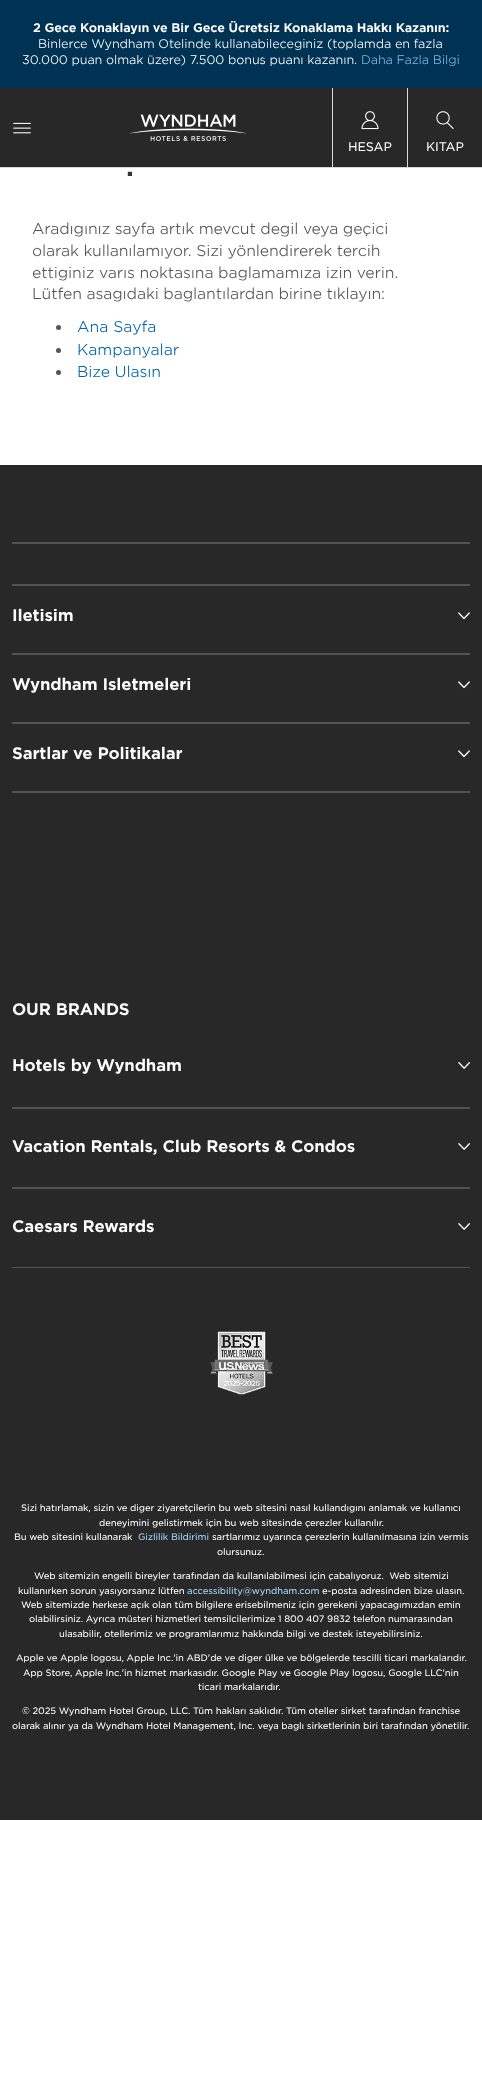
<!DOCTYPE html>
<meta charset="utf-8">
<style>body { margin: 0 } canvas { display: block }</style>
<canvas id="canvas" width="482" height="2087"></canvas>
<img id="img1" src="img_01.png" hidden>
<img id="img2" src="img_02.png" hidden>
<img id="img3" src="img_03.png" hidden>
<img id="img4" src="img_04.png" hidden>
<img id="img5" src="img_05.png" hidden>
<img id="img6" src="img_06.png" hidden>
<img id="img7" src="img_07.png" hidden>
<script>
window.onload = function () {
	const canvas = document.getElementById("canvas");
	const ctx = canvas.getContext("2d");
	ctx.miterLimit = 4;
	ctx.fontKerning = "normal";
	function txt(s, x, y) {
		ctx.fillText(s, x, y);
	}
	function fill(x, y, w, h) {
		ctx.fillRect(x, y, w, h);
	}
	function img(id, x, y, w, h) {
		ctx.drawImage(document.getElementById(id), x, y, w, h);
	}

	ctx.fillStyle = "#FFFFFF";
	fill(0, 0, 482, 2087);
	ctx.fillStyle = "#003353";
	fill(0, 0, 482, 88);
	ctx.fillStyle = "#282828";
	fill(0, 88, 482, 79);
	ctx.fillStyle = "#D9D9D9";
	fill(0, 167, 482, 1);
	img("img1", 13, 122, 18, 12);
	img("img2", 129, 114, 118, 27);
	fill(332, 88, 1, 80);
	img("img3", 361, 111, 18, 19);
	fill(407, 88, 1, 80);
	img("img4", 436, 111, 18, 18);
	ctx.fillStyle = "#555555";
	ctx.beginPath();
	ctx.arc(58.5, 327.5, 2.5, 0, Math.PI * 2);
	ctx.fill();
	ctx.beginPath();
	ctx.arc(58.5, 350.5, 2.5, 0, Math.PI * 2);
	ctx.fill();
	ctx.beginPath();
	ctx.arc(58.5, 372.5, 2.5, 0, Math.PI * 2);
	ctx.fill();
	ctx.fillStyle = "#282828";
	fill(0, 465, 482, 1355);
	ctx.fillStyle = "#535353";
	fill(12, 542, 458, 2);
	fill(12, 584, 458, 2);
	fill(12, 653, 458, 2);
	img("img5", 458, 612, 12, 8);
	fill(12, 722, 458, 2);
	img("img5", 458, 681, 12, 8);
	fill(12, 791, 458, 2);
	img("img5", 458, 750, 12, 8);
	img("img6", 458, 1062, 12, 7);
	fill(12, 1107, 458, 2);
	img("img6", 458, 1143, 12, 7);
	fill(12, 1187, 458, 2);
	img("img6", 458, 1223, 12, 7);
	fill(12, 1267, 458, 1);
	img("img7", 210, 1331, 63, 64);
	ctx.letterSpacing = "-0.12px";
	ctx.font = "12px 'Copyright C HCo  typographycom'";
	ctx.fillStyle = "#FFFFFF";
	txt("2 Gece Konaklayın ve Bir Gece Ücretsiz Konaklama Hakkı Kazanın:", 33, 32);
	ctx.font = "300 12px 'Copyright C HCo  typographycom'";
	txt("Binlerce Wyndham Otelinde kullanabileceğiniz (toplamda en fazla", 38, 48);
	txt("30.000 puan olmak üzere) 7.500 bonus puanı kazanın.", 22, 64);
	ctx.fillStyle = "#7FB9DE";
	txt("Daha Fazla Bilgi", 361, 64);
	ctx.font = "300 12px 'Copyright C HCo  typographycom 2'";
	ctx.fillStyle = "#FFFFFF";
	txt("HESAP", 348, 151);
	txt("KİTAP", 426, 151);
	ctx.letterSpacing = "0px";
	ctx.font = "26px 'Copyright C HCo  typographycom'";
	ctx.fillStyle = "#333333";
	txt(".", 126, 176);
	ctx.letterSpacing = "-0.15px";
	ctx.font = "300 15px 'Copyright C HCo  typographycom'";
	ctx.fillStyle = "#555555";
	txt("Aradığınız sayfa artık mevcut değil veya geçici", 32, 234);
	txt("olarak kullanılamıyor. Sizi yönlendirerek tercih", 32, 256);
	txt("ettiğiniz varış noktasına bağlamamıza izin verin.", 32, 278);
	txt("Lütfen aşağıdaki bağlantılardan birine tıklayın:", 32, 299);
	ctx.letterSpacing = "0px";
	ctx.fillStyle = "#0065AB";
	txt("Ana Sayfa", 77, 332);
	txt("Kampanyalar", 77, 355);
	ctx.letterSpacing = "-0.15px";
	txt("Bize Ulaşın", 77, 377);
	ctx.font = "16px 'Copyright C HCo  typographycom'";
	ctx.fillStyle = "#FFFFFF";
	txt("İletişim", 12, 621);
	txt("Wyndham İşletmeleri", 12, 690);
	txt("Şartlar ve Politikalar", 12, 759);
	txt("OUR BRANDS", 12, 1015);
	txt("Hotels by Wyndham", 12, 1071);
	txt("Vacation Rentals, Club Resorts & Condos", 12, 1152);
	txt("Caesars Rewards", 12, 1232);
	ctx.letterSpacing = "-0.12px";
	ctx.font = "300 9px 'Copyright C HCo  typographycom 2'";
	txt("Sizi hatırlamak, sizin ve diğer ziyaretçilerin bu web sitesini nasıl kullandığını anlamak ve kullanıcı", 21, 1511);
	txt("deneyimini geliştirmek için bu web sitesinde çerezler kullanılır.", 99, 1526);
	txt("Bu web sitesini kullanarak", 14, 1540);
	ctx.fillStyle = "#A4D9FC";
	txt("Gizlilik Bildirimi", 138, 1540);
	ctx.fillStyle = "#FFFFFF";
	txt("şartlarımız uyarınca çerezlerin kullanılmasına izin vermiş", 212, 1540);
	txt("olursunuz.", 217, 1555);
	txt("Web sitemizin engelli bireyler tarafından da kullanılabilmesi için çabalıyoruz.  Web sitemizi", 34, 1579);
	txt("kullanırken sorun yaşıyorsanız lütfen", 18, 1594);
	ctx.fillStyle = "#A4D9FC";
	txt("accessibility@wyndham.com", 187, 1594);
	ctx.fillStyle = "#FFFFFF";
	txt("e-posta adresinden bize ulaşın.", 322, 1594);
	txt("Web sitemizde herkese açık olan tüm bilgilere erişebilmeniz için gerekeni yapacağımızdan emin", 21, 1608);
	txt("olabilirsiniz. Ayrıca müşteri hizmetleri temsilcilerimize 1 800 407 9832 telefon numarasından", 29, 1622);
	txt("ulaşabilir, otellerimiz ve programlarımız hakkında bilgi ve destek isteyebilirsiniz.", 59, 1637);
	txt("Apple ve Apple logosu, Apple Inc.'in ABD'de ve diğer ülke ve bölgelerde tescilli ticari markalarıdır.", 16, 1661);
	txt("App Store, Apple Inc.'in hizmet markasıdır. Google Play ve Google Play logosu, Google LLC'nin", 23, 1676);
	txt("ticari markalarıdır.", 198, 1690);
	txt("© 2025 Wyndham Hotel Group, LLC. Tüm hakları saklıdır. Tüm oteller şirket tarafından franchise", 22, 1714);
	txt("olarak alınır ya da Wyndham Hotel Management, Inc. veya bağlı şirketlerinin biri tarafından yönetilir.", 12, 1729);
};
</script>
